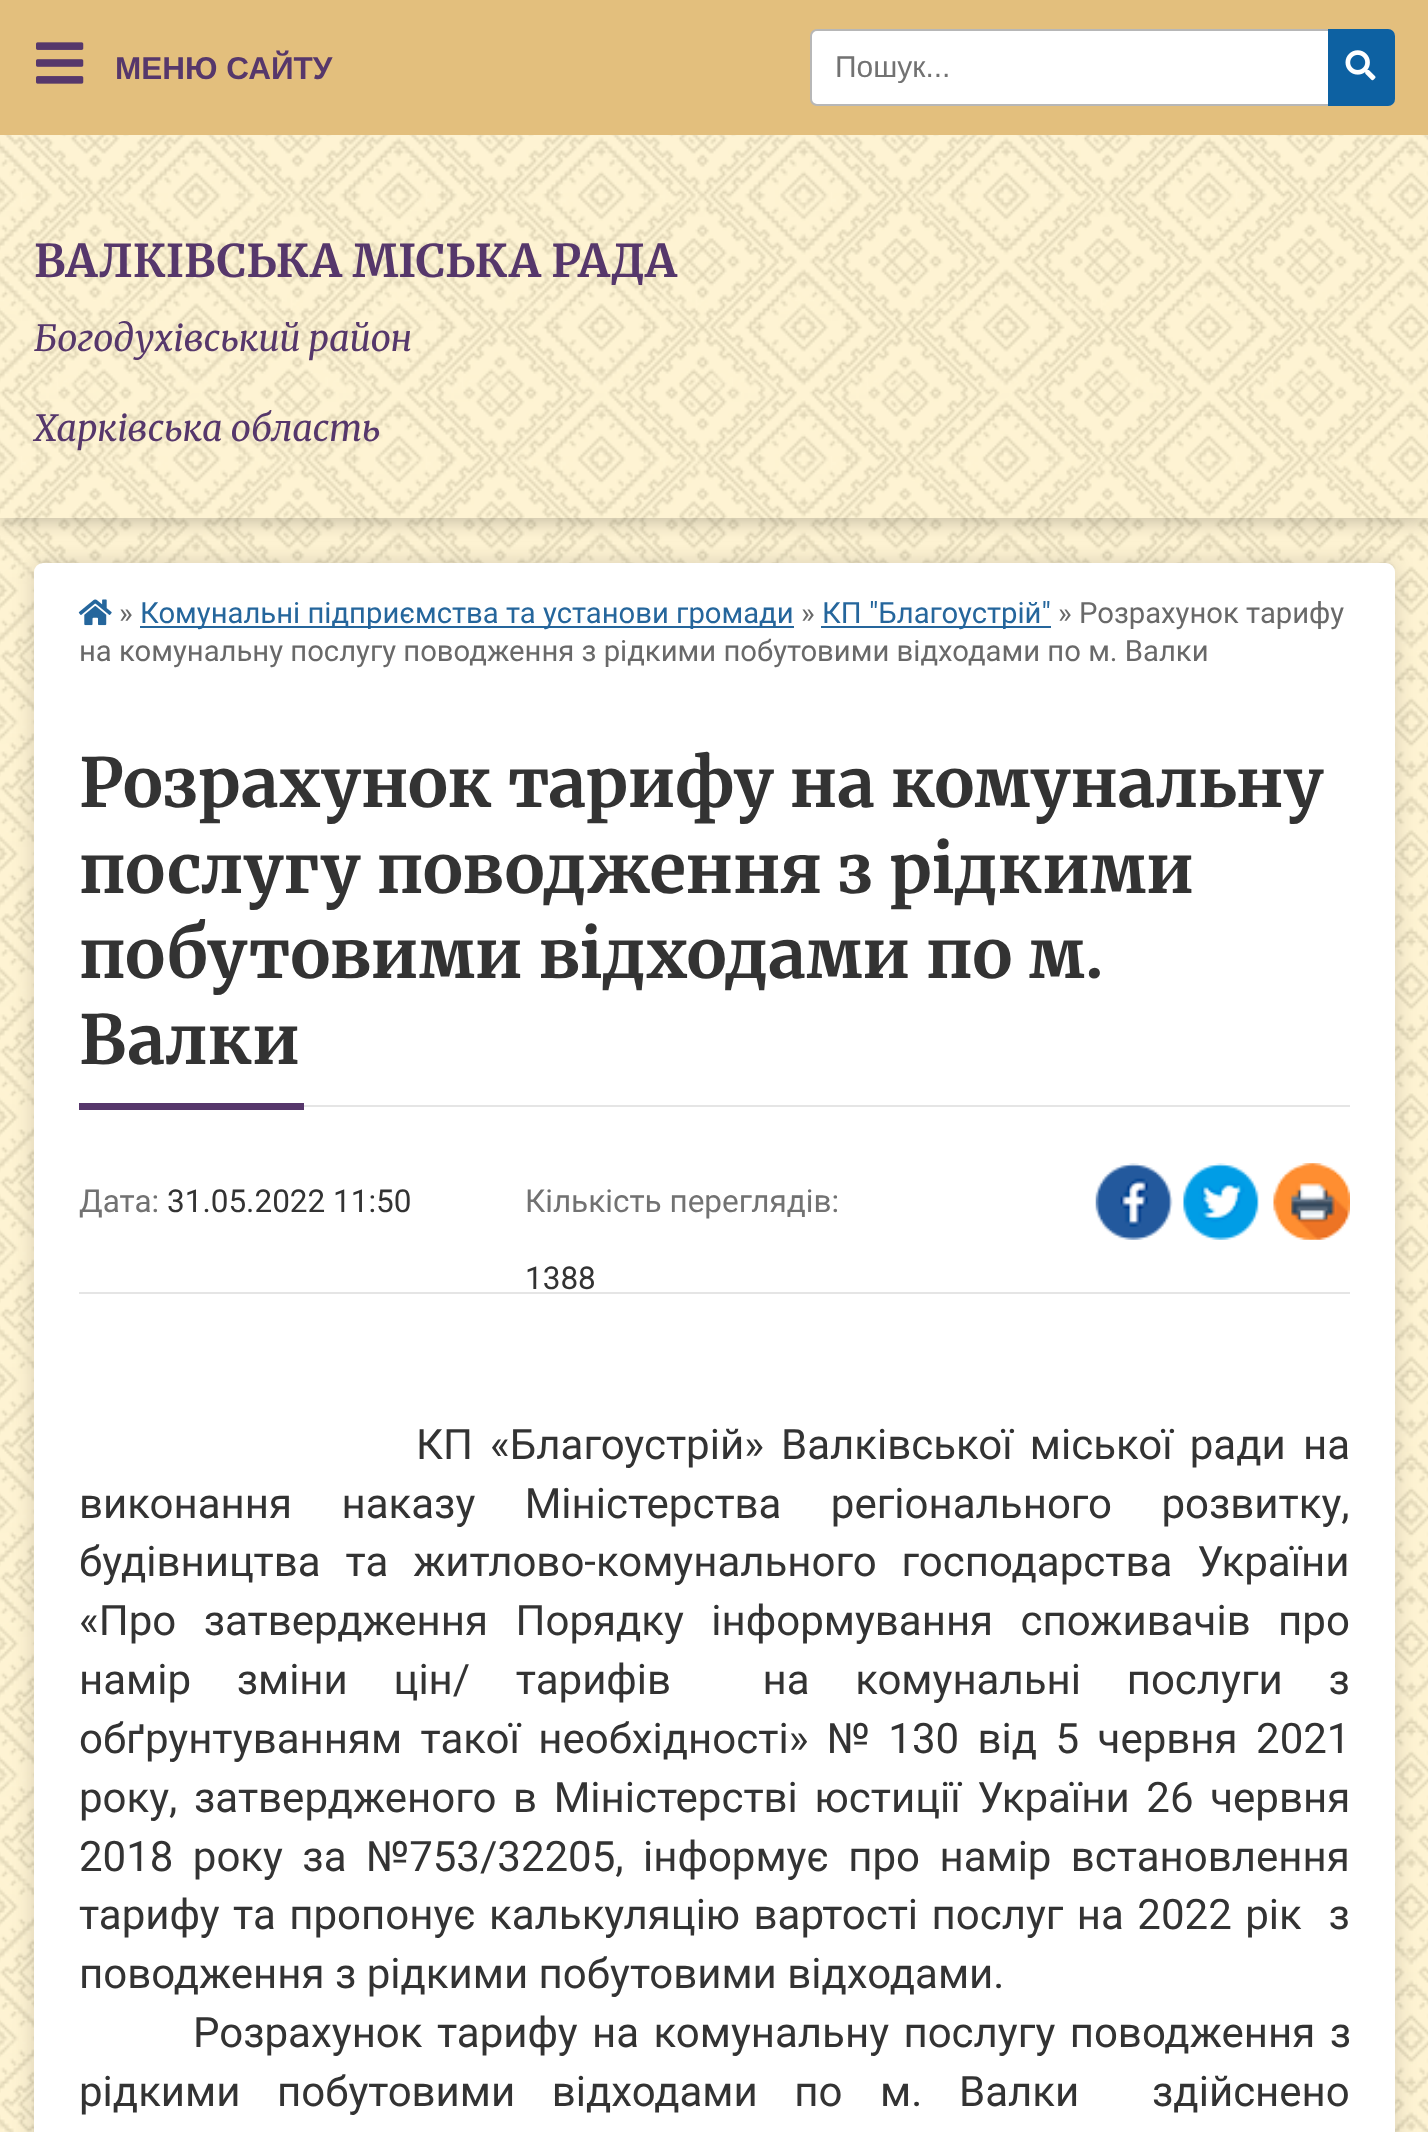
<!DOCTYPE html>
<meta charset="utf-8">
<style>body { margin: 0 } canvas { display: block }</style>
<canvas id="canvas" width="1428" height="2132"></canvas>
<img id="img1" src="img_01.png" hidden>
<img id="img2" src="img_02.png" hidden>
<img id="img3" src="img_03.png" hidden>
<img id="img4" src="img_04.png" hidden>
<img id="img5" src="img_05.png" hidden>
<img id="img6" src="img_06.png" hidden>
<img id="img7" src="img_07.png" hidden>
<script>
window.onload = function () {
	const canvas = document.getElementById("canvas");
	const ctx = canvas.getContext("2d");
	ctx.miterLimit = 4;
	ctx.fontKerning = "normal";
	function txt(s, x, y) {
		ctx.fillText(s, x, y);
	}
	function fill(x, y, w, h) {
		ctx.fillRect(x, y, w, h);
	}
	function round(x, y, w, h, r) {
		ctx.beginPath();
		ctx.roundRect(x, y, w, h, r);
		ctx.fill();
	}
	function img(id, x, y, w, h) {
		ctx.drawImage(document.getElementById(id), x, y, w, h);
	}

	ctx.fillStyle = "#FFF4CF";
	fill(0, 0, 1428, 2132);
	img("img1", 0, 135, 1428, 1997);
	ctx.fillStyle = "rgba(0, 0, 0, 0.15)";
	ctx.filter = "blur(11px)";
	ctx.beginPath();
	ctx.roundRect(34, 563, 1361, 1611, 9);
	ctx.fill();
	ctx.filter = "none";
	ctx.fillStyle = "#FFFFFF";
	round(34, 563, 1361, 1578, 9);
	ctx.save();
	ctx.beginPath();
	ctx.moveTo(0, 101);
	ctx.lineTo(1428, 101);
	ctx.lineTo(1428, 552);
	ctx.lineTo(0, 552);
	ctx.closePath();
	ctx.moveTo(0, 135);
	ctx.lineTo(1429, 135);
	ctx.lineTo(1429, 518);
	ctx.lineTo(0, 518);
	ctx.closePath();
	ctx.clip("evenodd");
	ctx.fillStyle = "rgba(0, 0, 0, 0.3)";
	ctx.filter = "blur(11px)";
	ctx.beginPath();
	ctx.rect(0, 135, 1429, 383);
	ctx.fill();
	ctx.filter = "none";
	ctx.restore();
	ctx.fillStyle = "#E3BF7D";
	fill(0, 0, 1428, 135);
	img("img2", 36, 42, 48, 42);
	img("img3", 78, 599, 34, 27);
	ctx.fillStyle = "#25669C";
	fill(140, 626, 654, 2);
	fill(821, 626, 230, 2);
	ctx.fillStyle = "#E5E5E5";
	fill(304, 1105, 1046, 2);
	ctx.fillStyle = "#56376B";
	fill(79, 1103, 225, 7);
	img("img4", 1095, 1163, 78, 77);
	img("img5", 1183, 1163, 76, 77);
	img("img6", 1273, 1163, 77, 77);
	ctx.fillStyle = "#E5E5E5";
	fill(79, 1292, 1271, 2);
	ctx.fillStyle = "#FFFFFF";
	ctx.beginPath();
	ctx.roundRect(811, 30, 583, 75, 6);
	ctx.fill();
	ctx.strokeStyle = "#B7B7B7";
	ctx.lineWidth = 2;
	ctx.stroke();
	ctx.fillStyle = "#0D61A2";
	ctx.beginPath();
	ctx.roundRect(1328, 29, 67, 77, [0, 7, 7, 0]);
	ctx.fill();
	img("img7", 1345, 50, 31, 31);
	ctx.font = "bold 31.5px Liberation Sans";
	ctx.fillStyle = "#56376B";
	txt("МЕНЮ САЙТУ", 115, 79);
	ctx.font = "29.25px Roboto";
	ctx.fillStyle = "#696969";
	txt("»", 119, 623);
	ctx.fillStyle = "#25669C";
	txt("Комунальні підприємства та установи громади", 140, 623);
	ctx.fillStyle = "#696969";
	txt("»", 801, 623);
	ctx.fillStyle = "#25669C";
	txt("КП \"Благоустрій\"", 822, 623);
	ctx.fillStyle = "#696969";
	txt("» Розрахунок тарифу", 1058, 623);
	txt("на комунальну послугу поводження з рідкими побутовими відходами по м. Валки", 79, 661);
	ctx.font = "300 67.5px Merriweather";
	ctx.fillStyle = "#333333";
	txt("Розрахунок тарифу на комунальну", 79, 807);
	txt("послугу поводження з рідкими", 79, 893);
	txt("побутовими відходами по м.", 79, 978);
	txt("Валки", 79, 1064);
	ctx.font = "31.5px Roboto";
	ctx.fillStyle = "#727272";
	txt("Дата:", 79, 1212);
	ctx.fillStyle = "#333333";
	txt("31.05.2022 11:50", 167, 1212);
	ctx.fillStyle = "#727272";
	txt("Кількість переглядів:", 525, 1212);
	ctx.fillStyle = "#333333";
	txt("1388", 525, 1289);
	ctx.wordSpacing = "6.75px";
	ctx.font = "42px Roboto";
	txt("КП «Благоустрій» Валківської міської ради на", 416, 1459);
	ctx.wordSpacing = "39px";
	txt("виконання наказу Міністерства регіонального розвитку,", 79, 1518);
	ctx.wordSpacing = "14.5px";
	txt("будівництва та житлово-комунального господарства України", 79, 1576);
	ctx.wordSpacing = "17px";
	txt("«Про затвердження Порядку інформування споживачів про", 79, 1635);
	ctx.wordSpacing = "35.25px";
	txt("намір зміни цін/ тарифів  на комунальні послуги з", 79, 1694);
	ctx.wordSpacing = "8px";
	txt("обґрунтуванням такої необхідності» № 130 від 5 червня 2021", 79, 1753);
	ctx.wordSpacing = "6.25px";
	txt("року, затвердженого в Міністерстві юстиції України 26 червня", 79, 1812);
	ctx.wordSpacing = "9px";
	txt("2018 року за №753/32205, інформує про намір встановлення", 79, 1871);
	ctx.wordSpacing = "3px";
	txt("тарифу та пропонує калькуляцію вартості послуг на 2022 рік  з", 79, 1929);
	ctx.wordSpacing = "0px";
	txt("поводження з рідкими побутовими відходами.", 79, 1988);
	ctx.wordSpacing = "4px";
	txt("Розрахунок тарифу на комунальну послугу поводження з", 193, 2047);
	ctx.wordSpacing = "0px";
	txt("рідкими", 79, 2106);
	ctx.wordSpacing = "26px";
	txt("побутовими відходами по", 277, 2106);
	ctx.wordSpacing = "0px";
	txt("м.", 880, 2106);
	txt("Валки", 959, 2106);
	txt("здійснено", 1152, 2106);
	ctx.save();
	ctx.beginPath();
	ctx.rect(835, 50, 468, 33);
	ctx.clip();
	ctx.font = "30px Liberation Sans";
	ctx.fillStyle = "#727272";
	txt("Пошук...", 835, 77);
	ctx.restore();
	ctx.font = "300 45px Merriweather";
	ctx.fillStyle = "#56376B";
	txt("ВАЛКІВСЬКА МІСЬКА РАДА", 34, 277);
	ctx.font = "italic 300 36px Merriweather";
	txt("Богодухівський район", 34, 351);
	txt("Харківська область", 34, 441);
};
</script>
